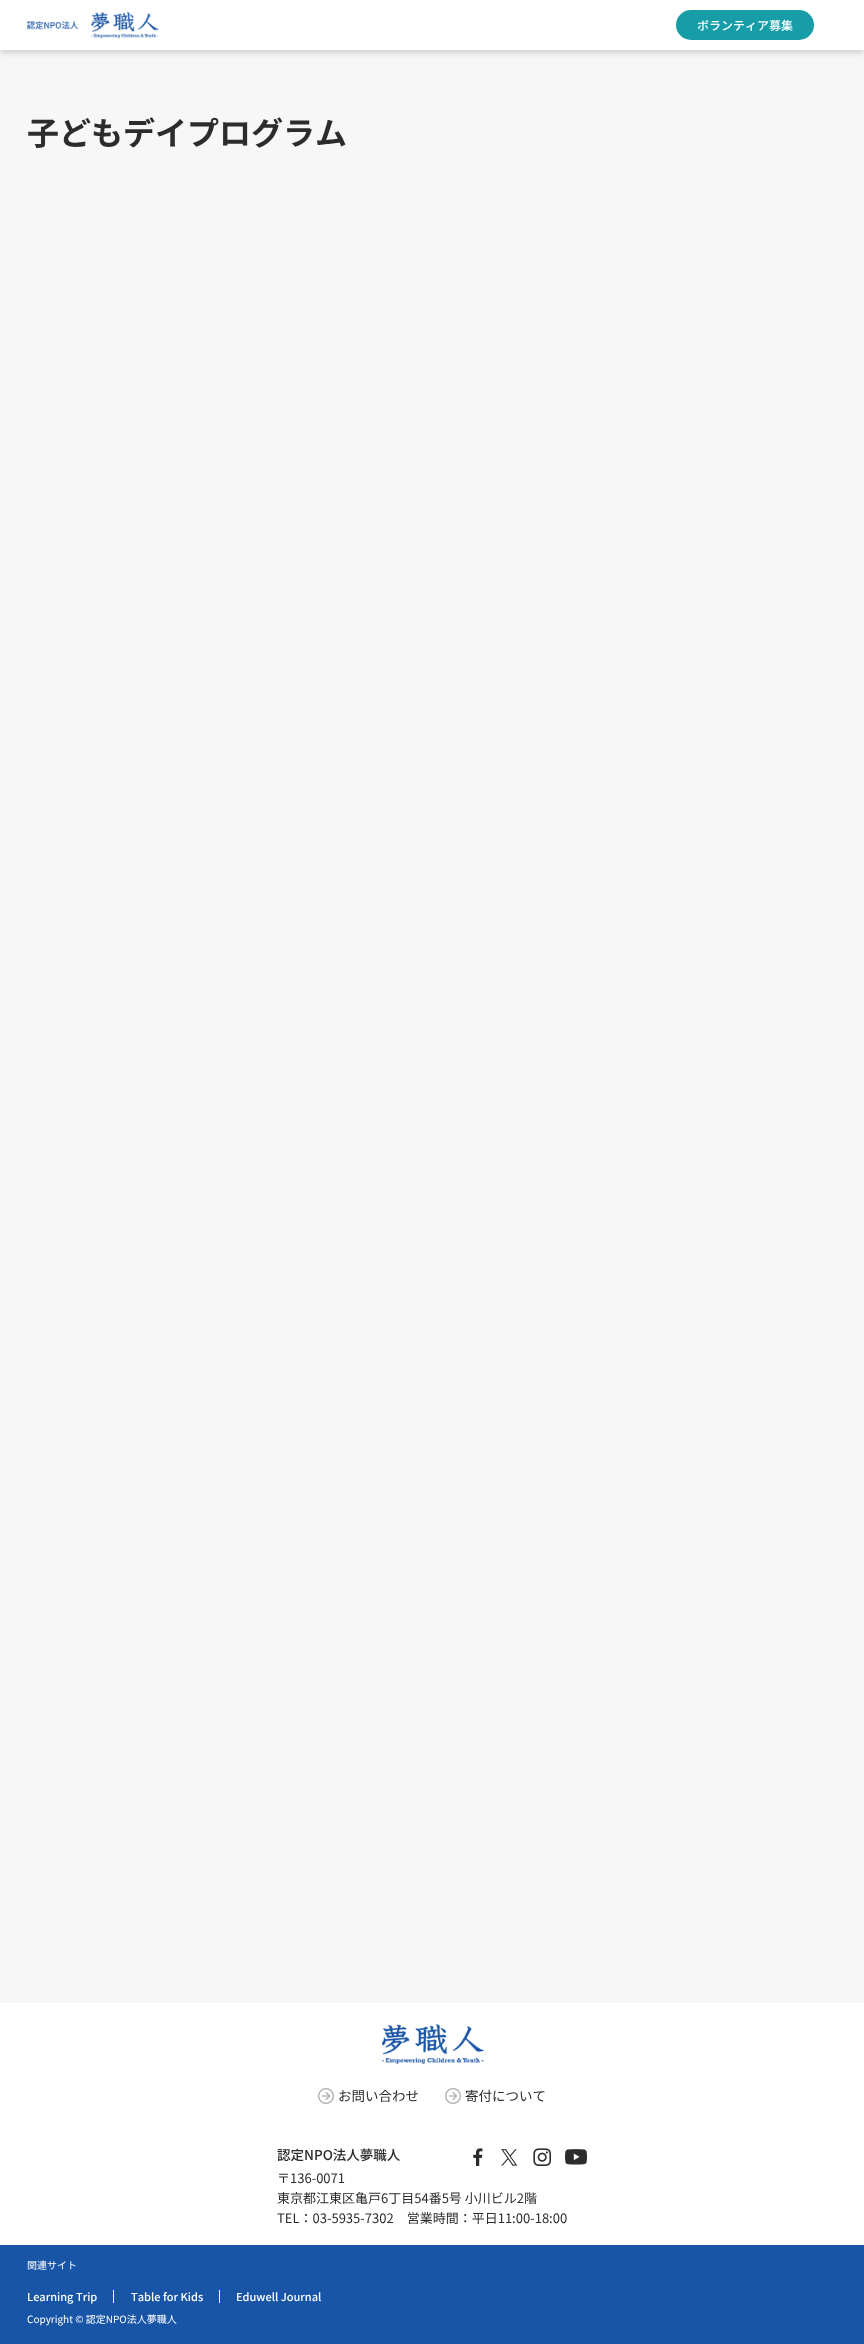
<!DOCTYPE html>
<meta charset="utf-8">
<style>body { margin: 0 } canvas { display: block }</style>
<canvas id="canvas" width="864" height="2344"></canvas>
<img id="img1" src="img_01.png" hidden>
<img id="img2" src="img_02.png" hidden>
<img id="img3" src="img_03.png" hidden>
<img id="img4" src="img_04.png" hidden>
<img id="img5" src="img_05.png" hidden>
<img id="img6" src="img_06.png" hidden>
<img id="img7" src="img_07.png" hidden>
<script>
window.onload = function () {
	const canvas = document.getElementById("canvas");
	const ctx = canvas.getContext("2d");
	ctx.miterLimit = 4;
	ctx.fontKerning = "none";
	function txt(s, x, y) {
		ctx.fillText(s, x, y);
	}
	function fill(x, y, w, h) {
		ctx.fillRect(x, y, w, h);
	}
	function round(x, y, w, h, r) {
		ctx.beginPath();
		ctx.roundRect(x, y, w, h, r);
		ctx.fill();
	}
	function img(id, x, y, w, h) {
		ctx.drawImage(document.getElementById(id), x, y, w, h);
	}

	ctx.fillStyle = "#F7F7F7";
	fill(0, 0, 864, 2344);
	ctx.fillStyle = "rgba(0, 0, 0, 0.16)";
	ctx.filter = "blur(3px)";
	ctx.beginPath();
	ctx.rect(0, 3, 864, 50);
	ctx.fill();
	ctx.filter = "none";
	ctx.fillStyle = "#FFFFFF";
	fill(0, 0, 864, 50);
	img("img1", 27, 11, 132, 28);
	ctx.fillStyle = "#179DA8";
	round(676, 10, 138, 30, 15);
	ctx.fillStyle = "#FFFFFF";
	fill(0, 2003, 864, 242);
	img("img2", 382, 2024, 102, 40);
	img("img3", 318, 2088, 16, 16);
	img("img3", 445, 2088, 16, 16);
	img("img4", 473, 2148, 10, 18);
	img("img5", 501, 2149, 17, 17);
	img("img6", 533, 2148, 18, 18);
	img("img7", 565, 2149, 22, 16);
	ctx.fillStyle = "#1955A6";
	fill(0, 2245, 864, 99);
	ctx.fillStyle = "#FFFFFF";
	fill(113, 2290, 1, 13);
	fill(219, 2290, 1, 13);
	ctx.font = "500 12px Noto Sans JP";
	txt("ボランティア募集", 697, 30);
	ctx.font = "bold 32px Noto Sans JP";
	ctx.fillStyle = "#2C2C2C";
	txt("子どもデイプログラム", 27, 145);
	ctx.font = "13.5px Noto Sans JP";
	txt("お問い合わせ", 338, 2101);
	txt("寄付について", 465, 2101);
	ctx.font = "500 13.5px Noto Sans JP";
	txt("認定NPO法人夢職人", 277, 2160);
	ctx.font = "13px Noto Sans JP";
	txt("〒136-0071", 277, 2183);
	txt("東京都江東区亀戸6丁目54番5号 小川ビル2階", 277, 2203);
	txt("TEL：03-5935-7302　営業時間：平日11:00-18:00", 277, 2223);
	ctx.font = "10px Noto Sans JP";
	ctx.fillStyle = "#FFFFFF";
	txt("関連サイト", 27, 2269);
	ctx.font = "500 11px Noto Sans JP";
	txt("Learning Trip", 27, 2301);
	txt("Table for Kids", 131, 2301);
	txt("Eduwell Journal", 236, 2301);
	ctx.font = "10px Noto Sans JP";
	txt("Copyright © 認定NPO法人夢職人", 27, 2323);
};
</script>
